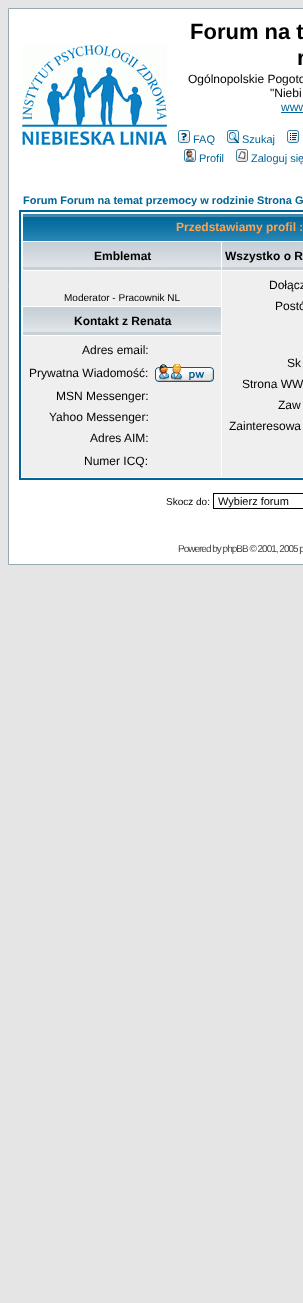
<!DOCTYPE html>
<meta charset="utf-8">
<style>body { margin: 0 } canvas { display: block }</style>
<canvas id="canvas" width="303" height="1303"></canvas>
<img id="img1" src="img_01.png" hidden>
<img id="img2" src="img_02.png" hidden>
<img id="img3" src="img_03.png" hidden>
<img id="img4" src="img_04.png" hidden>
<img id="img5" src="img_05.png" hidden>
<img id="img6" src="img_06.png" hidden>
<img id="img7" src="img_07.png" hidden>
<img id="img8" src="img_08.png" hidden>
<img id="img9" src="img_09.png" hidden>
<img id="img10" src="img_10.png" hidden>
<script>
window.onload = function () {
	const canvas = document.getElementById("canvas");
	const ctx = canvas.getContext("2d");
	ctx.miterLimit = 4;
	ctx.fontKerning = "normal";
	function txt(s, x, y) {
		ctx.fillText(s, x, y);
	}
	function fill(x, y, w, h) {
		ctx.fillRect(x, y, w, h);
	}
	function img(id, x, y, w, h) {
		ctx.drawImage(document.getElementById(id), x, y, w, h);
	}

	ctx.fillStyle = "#E5E5E5";
	fill(0, 0, 303, 1303);
	ctx.fillStyle = "#FFFFFF";
	ctx.beginPath();
	ctx.rect(8.5, 8.5, 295, 556);
	ctx.fill();
	ctx.strokeStyle = "#98AAB1";
	ctx.stroke();
	img("img1", 22, 45, 145, 100);
	ctx.fillStyle = "#006699";
	fill(281, 112, 22, 1);
	img("img2", 178, 130, 12, 13);
	img("img3", 227, 130, 12, 13);
	img("img4", 287, 130, 12, 13);
	img("img5", 184, 149, 12, 13);
	img("img6", 236, 149, 12, 13);
	ctx.strokeStyle = "#006699";
	ctx.lineWidth = 2;
	ctx.strokeRect(20, 211, 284, 268);
	img("img7", 23, 214, 280, 27);
	img("img8", 23, 242, 198, 28);
	img("img9", 222, 242, 81, 28);
	ctx.fillStyle = "#EFEFEF";
	fill(22, 271, 199, 35);
	fill(222, 271, 81, 206);
	img("img8", 23, 307, 198, 28);
	fill(22, 336, 199, 141);
	img("img10", 155, 364, 59, 18);
	ctx.strokeStyle = "#000000";
	ctx.lineWidth = 1;
	ctx.strokeRect(213.5, 493.5, 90, 15);
	ctx.font = "bold 22px Liberation Sans";
	ctx.fillStyle = "#000000";
	txt("Forum na t", 190, 39);
	txt("r", 297, 65);
	ctx.font = "12px Liberation Sans";
	txt("Ogólnopolskie Pogoto", 188, 83);
	txt("\"Niebi", 270, 97);
	ctx.fillStyle = "#006699";
	txt("www", 281, 111);
	ctx.font = "11px Liberation Sans";
	txt("FAQ", 193, 143);
	txt("Szukaj", 242, 143);
	txt("Profil", 199, 162);
	txt("Zaloguj się", 251, 162);
	ctx.font = "bold 11px Liberation Sans";
	txt("Forum Forum na temat przemocy w rodzinie Strona G", 23, 204);
	ctx.font = "bold 12px Liberation Sans";
	ctx.fillStyle = "#FFA34F";
	txt("Przedstawiamy profil :", 176, 231);
	ctx.fillStyle = "#000000";
	txt("Emblemat", 94, 260);
	txt("Wszystko o R", 225, 260);
	ctx.font = "10px Liberation Sans";
	txt("Moderator - Pracownik NL", 64, 301);
	ctx.font = "12px Liberation Sans";
	txt("Dołącz", 269, 289);
	txt("Postó", 275, 310);
	txt("Sk", 287, 367);
	txt("Strona WW", 242, 388);
	txt("Zaw", 278, 409);
	txt("Zainteresowa", 229, 430);
	ctx.font = "bold 12px Liberation Sans";
	txt("Kontakt z Renata", 74, 325);
	ctx.font = "12px Liberation Sans";
	txt("Adres email:", 82, 354);
	txt("Prywatna Wiadomość:", 29, 377);
	txt("MSN Messenger:", 56, 400);
	txt("Yahoo Messenger:", 49, 421);
	txt("Adres AIM:", 90, 442);
	txt("Numer ICQ:", 84, 465);
	ctx.font = "10px Liberation Sans";
	txt("Skocz do:", 166, 505);
	ctx.font = "11px Liberation Sans";
	txt("Wybierz forum", 218, 505);
	ctx.letterSpacing = "-1px";
	ctx.font = "10px Liberation Sans";
	ctx.fillStyle = "#444444";
	txt("Powered by phpBB © 2001, 2005 p", 178, 552);
};
</script>
